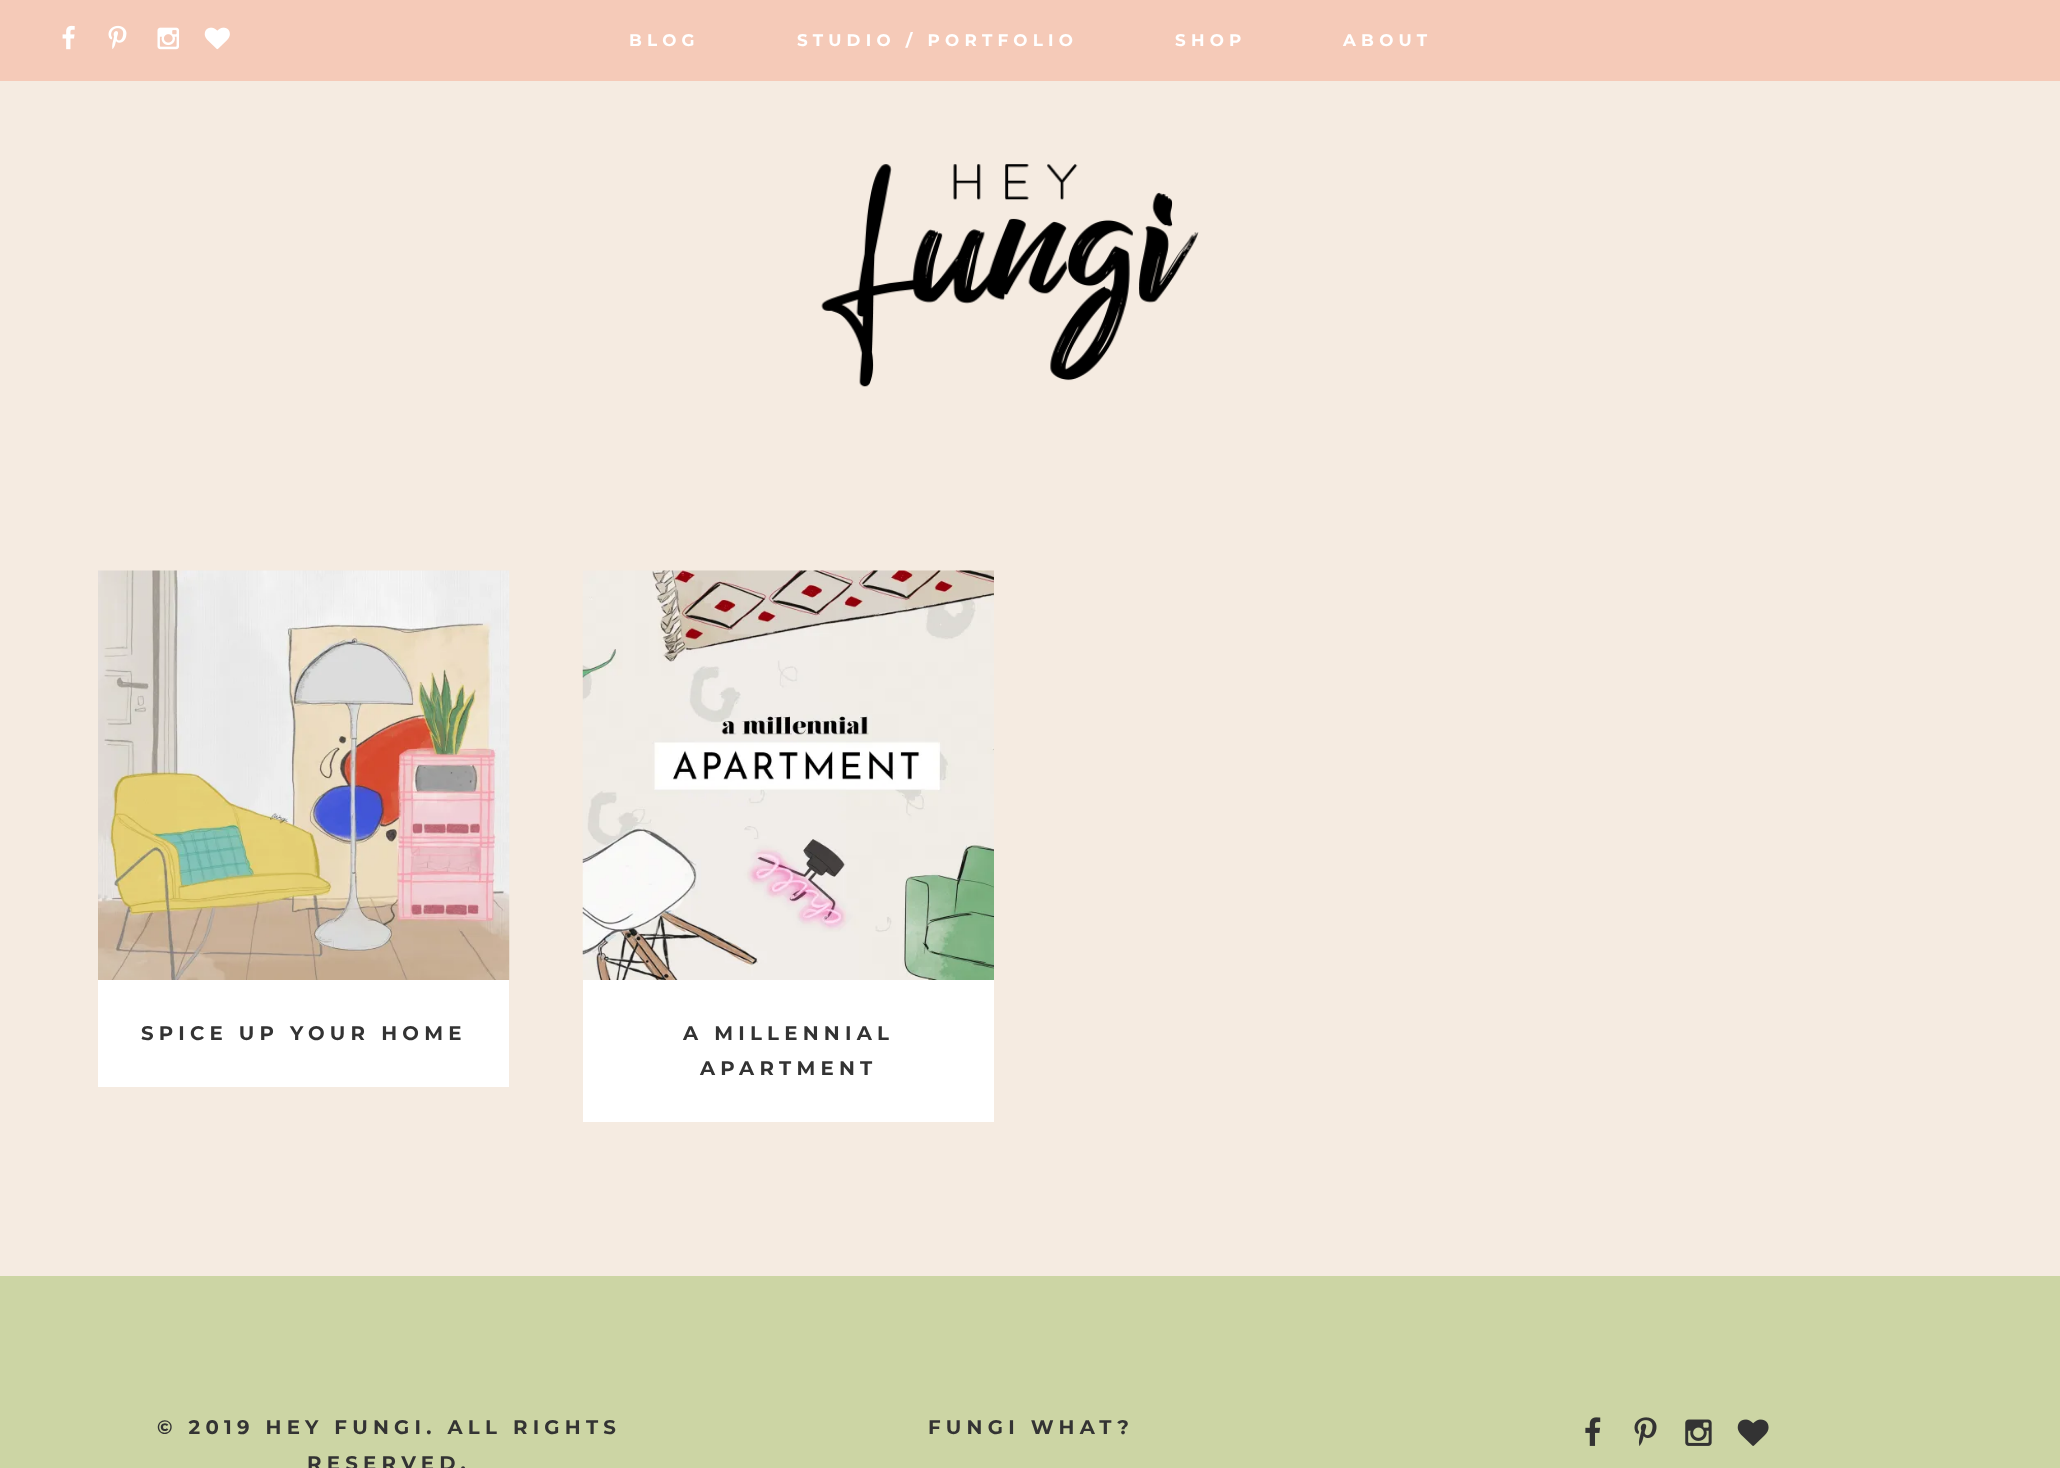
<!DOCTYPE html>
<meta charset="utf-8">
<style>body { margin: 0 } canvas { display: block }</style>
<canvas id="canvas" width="2060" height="1468"></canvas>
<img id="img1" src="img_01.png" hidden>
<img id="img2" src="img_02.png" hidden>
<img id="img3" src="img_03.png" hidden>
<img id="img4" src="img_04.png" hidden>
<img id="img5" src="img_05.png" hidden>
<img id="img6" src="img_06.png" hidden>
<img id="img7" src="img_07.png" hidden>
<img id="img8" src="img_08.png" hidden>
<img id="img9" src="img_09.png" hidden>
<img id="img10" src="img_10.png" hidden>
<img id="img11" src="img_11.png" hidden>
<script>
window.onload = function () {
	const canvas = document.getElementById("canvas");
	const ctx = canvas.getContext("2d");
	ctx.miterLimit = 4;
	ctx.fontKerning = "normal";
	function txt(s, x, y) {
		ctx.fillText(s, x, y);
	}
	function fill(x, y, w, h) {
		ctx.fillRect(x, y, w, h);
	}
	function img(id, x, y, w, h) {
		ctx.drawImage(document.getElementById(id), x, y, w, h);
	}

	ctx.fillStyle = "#F5EBE1";
	fill(0, 0, 2060, 1468);
	ctx.fillStyle = "#F5CAB8";
	fill(0, 0, 2060, 81);
	img("img1", 62, 25, 13, 25);
	img("img2", 108, 25, 19, 24);
	img("img3", 157, 27, 22, 23);
	img("img4", 204, 27, 26, 23);
	img("img5", 821, 164, 378, 223);
	ctx.fillStyle = "#FFFFFF";
	fill(98, 980, 411, 107);
	img("img6", 98, 570, 412, 410);
	fill(583, 980, 411, 142);
	img("img7", 582, 570, 412, 410);
	ctx.fillStyle = "#CCD5A4";
	fill(0, 1276, 2060, 192);
	img("img8", 1585, 1417, 16, 29);
	img("img9", 1634, 1417, 23, 29);
	img("img10", 1685, 1419, 27, 27);
	img("img11", 1737, 1419, 32, 27);
	ctx.letterSpacing = "5.25px";
	ctx.font = "bold 16.75px Montserrat";
	ctx.fillStyle = "#FFFFFF";
	txt("BLOG", 629, 46);
	txt("STUDIO / PORTFOLIO", 797, 46);
	txt("SHOP", 1175, 46);
	txt("ABOUT", 1343, 46);
	ctx.font = "bold 19.7px Montserrat";
	ctx.fillStyle = "#333333";
	txt("SPICE UP YOUR HOME", 141, 1040);
	txt("A MILLENNIAL", 683, 1040);
	txt("APARTMENT", 700, 1075);
	txt("© 2019 HEY FUNGI. ALL RIGHTS", 157, 1434);
	txt("RESERVED.", 307, 1470);
	txt("FUNGI WHAT?", 928, 1434);
};
</script>
